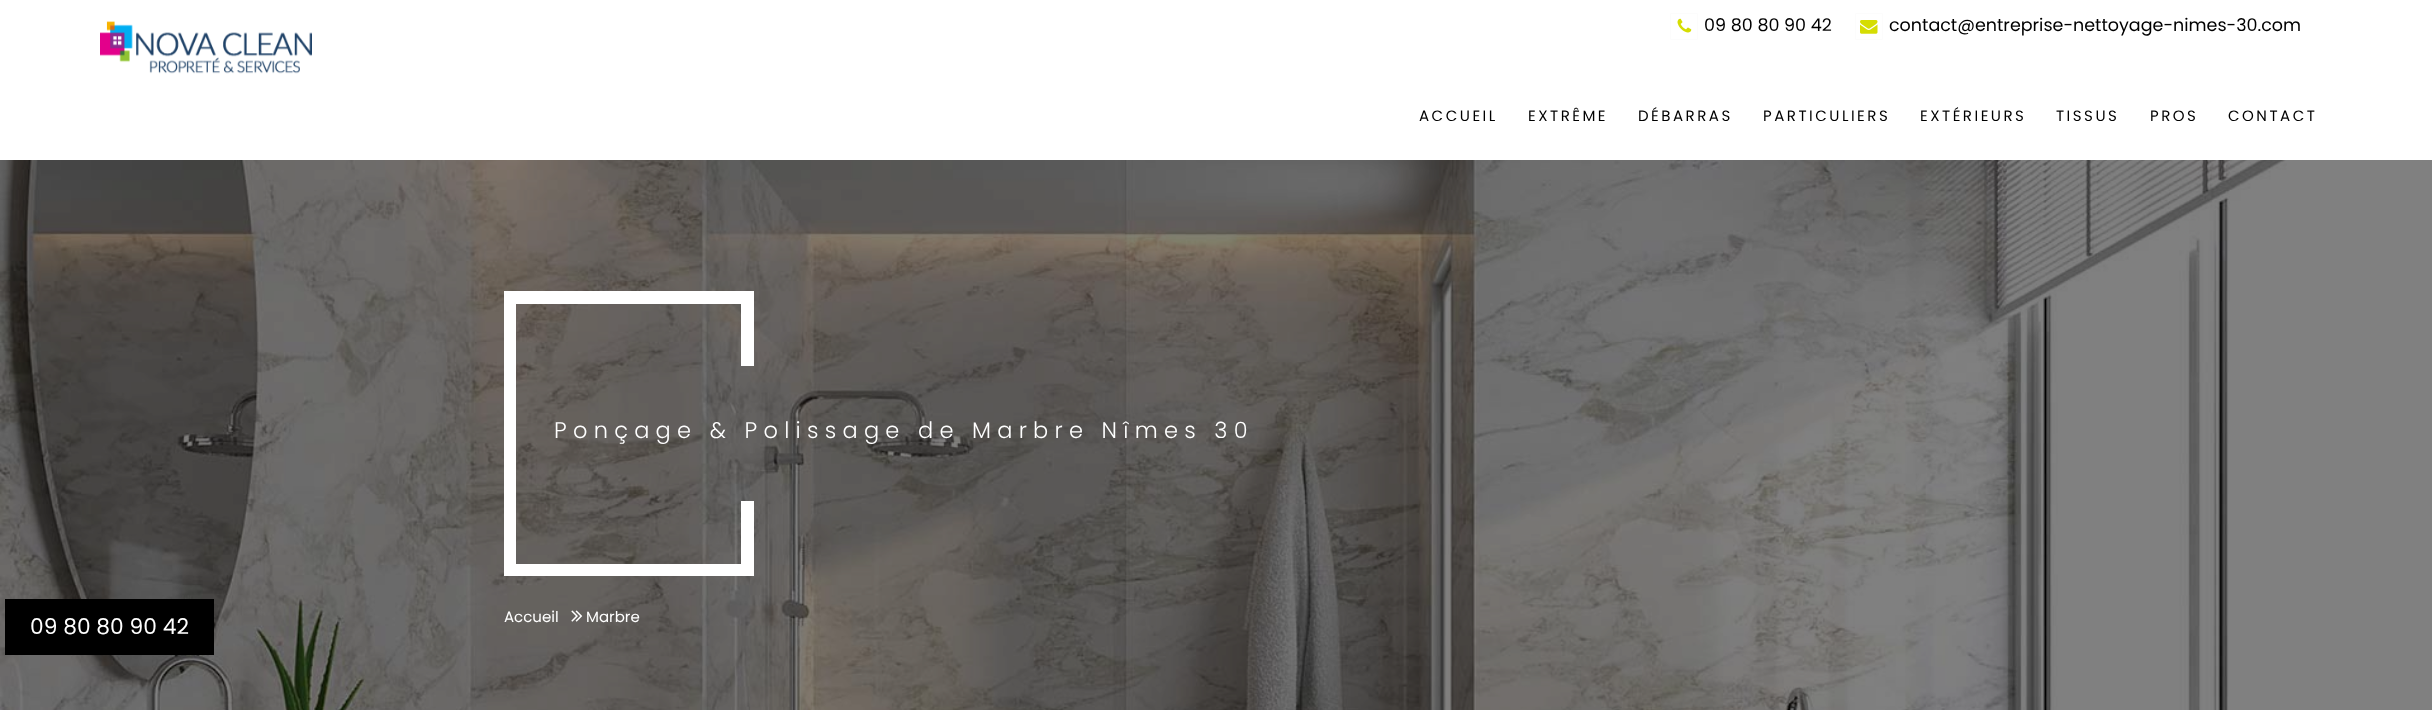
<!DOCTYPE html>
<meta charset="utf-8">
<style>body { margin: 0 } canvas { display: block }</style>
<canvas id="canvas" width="2432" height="710"></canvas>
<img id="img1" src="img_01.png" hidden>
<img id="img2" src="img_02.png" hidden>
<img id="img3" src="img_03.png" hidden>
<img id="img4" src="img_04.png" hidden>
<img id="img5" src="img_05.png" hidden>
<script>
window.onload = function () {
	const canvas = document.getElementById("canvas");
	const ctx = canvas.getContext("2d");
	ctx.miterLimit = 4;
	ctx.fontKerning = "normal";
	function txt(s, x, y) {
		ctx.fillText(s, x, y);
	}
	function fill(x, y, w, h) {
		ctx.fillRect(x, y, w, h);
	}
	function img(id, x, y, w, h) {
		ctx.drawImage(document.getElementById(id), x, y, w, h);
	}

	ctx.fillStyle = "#FFFFFF";
	fill(0, 0, 2432, 710);
	ctx.fillStyle = "#808080";
	fill(2287, 160, 145, 550);
	img("img1", 100, 21, 212, 53);
	ctx.beginPath();
	ctx.roundRect(1670.5, 13.5, 27, 26, 0.5);
	ctx.strokeStyle = "#FCFCFC";
	ctx.stroke();
	img("img2", 1677, 18, 15, 15);
	ctx.beginPath();
	ctx.roundRect(1855.5, 13.5, 27, 26, 0.5);
	ctx.stroke();
	img("img3", 1860, 20, 18, 14);
	img("img4", 0, 160, 2287, 550);
	ctx.fillStyle = "#FFFFFF";
	fill(516, 291, 238, 13);
	fill(516, 564, 238, 12);
	fill(504, 291, 12, 285);
	fill(741, 304, 13, 62);
	fill(741, 501, 13, 63);
	img("img5", 571, 610, 12, 12);
	ctx.fillStyle = "#000000";
	fill(5, 599, 209, 56);
	ctx.font = "17.5px Poppins";
	txt("09 80 80 90 42", 1704, 31);
	txt("contact@entreprise-nettoyage-nimes-30.com", 1889, 31);
	ctx.letterSpacing = "2.5px";
	ctx.font = "15px Poppins";
	txt("ACCUEIL", 1419, 121);
	txt("EXTRÊME", 1528, 121);
	txt("DÉBARRAS", 1638, 121);
	txt("PARTICULIERS", 1763, 121);
	txt("EXTÉRIEURS", 1920, 121);
	txt("TISSUS", 2056, 121);
	txt("PROS", 2150, 121);
	txt("CONTACT", 2228, 121);
	ctx.letterSpacing = "6.25px";
	ctx.font = "300 22.5px Poppins";
	ctx.fillStyle = "#FFFFFF";
	txt("Ponçage & Polissage de Marbre Nîmes 30", 554, 438);
	ctx.letterSpacing = "0px";
	ctx.font = "15px Poppins";
	txt("Accueil", 504, 622);
	txt("Marbre", 586, 622);
	ctx.font = "21.75px Poppins";
	txt("09 80 80 90 42", 30, 634);
};
</script>
